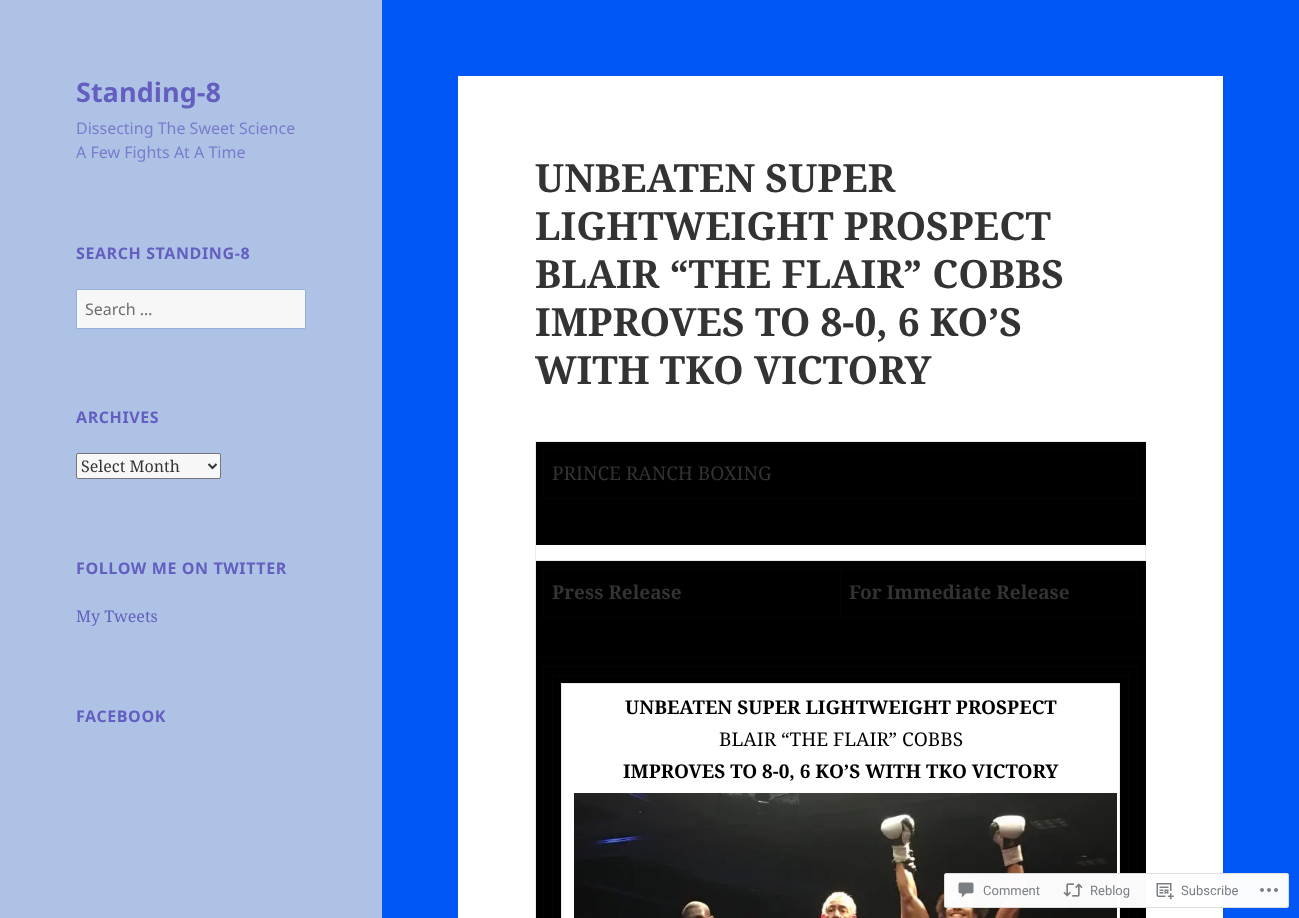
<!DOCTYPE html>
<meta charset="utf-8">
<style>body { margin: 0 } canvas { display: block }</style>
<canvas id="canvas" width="1299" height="918"></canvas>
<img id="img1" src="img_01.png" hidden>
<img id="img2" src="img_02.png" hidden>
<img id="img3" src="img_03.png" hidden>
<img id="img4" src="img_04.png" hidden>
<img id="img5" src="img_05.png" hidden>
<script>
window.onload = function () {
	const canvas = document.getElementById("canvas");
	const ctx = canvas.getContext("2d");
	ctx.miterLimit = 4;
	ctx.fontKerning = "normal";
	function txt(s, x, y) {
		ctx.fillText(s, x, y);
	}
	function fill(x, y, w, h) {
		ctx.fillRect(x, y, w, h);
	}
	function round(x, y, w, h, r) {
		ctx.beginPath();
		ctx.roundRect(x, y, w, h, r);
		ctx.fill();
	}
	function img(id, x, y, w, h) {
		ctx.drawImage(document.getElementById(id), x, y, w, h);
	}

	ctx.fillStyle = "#0057F5";
	fill(0, 0, 1299, 918);
	ctx.fillStyle = "#AEC2E6";
	fill(0, 0, 382, 918);
	ctx.fillStyle = "#F7F7F7";
	ctx.beginPath();
	ctx.rect(76.5, 289.5, 229, 39);
	ctx.fill();
	ctx.strokeStyle = "#98B0DB";
	ctx.stroke();
	ctx.beginPath();
	ctx.roundRect(76.5, 453.5, 144, 25, 1.5);
	ctx.fill();
	ctx.strokeStyle = "#767676";
	ctx.stroke();
	ctx.beginPath();
	ctx.moveTo(208.5, 464);
	ctx.lineTo(212.5, 468);
	ctx.lineTo(216.5, 464);
	ctx.strokeStyle = "#333333";
	ctx.lineWidth = 2;
	ctx.stroke();
	ctx.fillStyle = "#FFFFFF";
	fill(458, 76, 765, 842);
	ctx.fillStyle = "#EBEBEB";
	ctx.beginPath();
	ctx.moveTo(535, 441);
	ctx.lineTo(1146, 441);
	ctx.lineTo(1146, 442);
	ctx.lineTo(536, 442);
	ctx.closePath();
	ctx.fill();
	ctx.fillStyle = "rgba(51, 51, 51, 0.1)";
	ctx.beginPath();
	ctx.moveTo(535, 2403);
	ctx.lineTo(535, 441);
	ctx.lineTo(536, 442);
	ctx.lineTo(536, 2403);
	ctx.closePath();
	ctx.fill();
	ctx.fillStyle = "#000000";
	fill(536, 442, 610, 103);
	ctx.fillStyle = "#050505";
	ctx.beginPath();
	ctx.moveTo(1146, 442);
	ctx.lineTo(1146, 545);
	ctx.lineTo(1145, 544);
	ctx.lineTo(1145, 442);
	ctx.closePath();
	ctx.fill();
	ctx.fillStyle = "rgba(51, 51, 51, 0.1)";
	ctx.beginPath();
	ctx.moveTo(1146, 545);
	ctx.lineTo(536, 545);
	ctx.lineTo(536, 544);
	ctx.lineTo(1145, 544);
	ctx.closePath();
	ctx.fill();
	ctx.fillStyle = "#050505";
	ctx.beginPath();
	ctx.moveTo(543, 449);
	ctx.lineTo(1138, 449);
	ctx.lineTo(1138, 450);
	ctx.lineTo(544, 450);
	ctx.closePath();
	ctx.fill();
	ctx.beginPath();
	ctx.moveTo(543, 499);
	ctx.lineTo(543, 449);
	ctx.lineTo(544, 450);
	ctx.lineTo(544, 499);
	ctx.closePath();
	ctx.fill();
	ctx.beginPath();
	ctx.moveTo(1138, 450);
	ctx.lineTo(1138, 499);
	ctx.lineTo(1137, 498);
	ctx.lineTo(1137, 450);
	ctx.closePath();
	ctx.fill();
	ctx.fillStyle = "rgba(51, 51, 51, 0.1)";
	ctx.beginPath();
	ctx.moveTo(1138, 499);
	ctx.lineTo(544, 499);
	ctx.lineTo(544, 498);
	ctx.lineTo(1137, 498);
	ctx.closePath();
	ctx.fill();
	ctx.fillStyle = "#EBEBEB";
	ctx.beginPath();
	ctx.moveTo(1146, 545);
	ctx.lineTo(1146, 561);
	ctx.lineTo(1145, 560);
	ctx.lineTo(1145, 545);
	ctx.closePath();
	ctx.fill();
	ctx.fillStyle = "rgba(51, 51, 51, 0.1)";
	ctx.beginPath();
	ctx.moveTo(1146, 561);
	ctx.lineTo(536, 561);
	ctx.lineTo(536, 560);
	ctx.lineTo(1145, 560);
	ctx.closePath();
	ctx.fill();
	ctx.fillStyle = "#000000";
	fill(536, 561, 610, 97);
	ctx.fillStyle = "#050505";
	ctx.beginPath();
	ctx.moveTo(1146, 561);
	ctx.lineTo(1146, 658);
	ctx.lineTo(1145, 657);
	ctx.lineTo(1145, 561);
	ctx.closePath();
	ctx.fill();
	ctx.fillStyle = "rgba(51, 51, 51, 0.1)";
	ctx.beginPath();
	ctx.moveTo(1146, 658);
	ctx.lineTo(536, 658);
	ctx.lineTo(536, 657);
	ctx.lineTo(1145, 657);
	ctx.closePath();
	ctx.fill();
	ctx.fillStyle = "#050505";
	ctx.beginPath();
	ctx.moveTo(543, 569);
	ctx.lineTo(1138, 569);
	ctx.lineTo(1138, 570);
	ctx.lineTo(544, 570);
	ctx.closePath();
	ctx.fill();
	ctx.beginPath();
	ctx.moveTo(543, 618);
	ctx.lineTo(543, 569);
	ctx.lineTo(544, 570);
	ctx.lineTo(544, 618);
	ctx.closePath();
	ctx.fill();
	ctx.beginPath();
	ctx.moveTo(841, 570);
	ctx.lineTo(841, 618);
	ctx.lineTo(840, 617);
	ctx.lineTo(840, 570);
	ctx.closePath();
	ctx.fill();
	ctx.fillStyle = "rgba(51, 51, 51, 0.1)";
	ctx.beginPath();
	ctx.moveTo(841, 618);
	ctx.lineTo(544, 618);
	ctx.lineTo(544, 617);
	ctx.lineTo(840, 617);
	ctx.closePath();
	ctx.fill();
	ctx.fillStyle = "#050505";
	ctx.beginPath();
	ctx.moveTo(1138, 570);
	ctx.lineTo(1138, 618);
	ctx.lineTo(1137, 617);
	ctx.lineTo(1137, 570);
	ctx.closePath();
	ctx.fill();
	ctx.fillStyle = "rgba(51, 51, 51, 0.1)";
	ctx.beginPath();
	ctx.moveTo(1138, 618);
	ctx.lineTo(841, 618);
	ctx.lineTo(841, 617);
	ctx.lineTo(1137, 617);
	ctx.closePath();
	ctx.fill();
	ctx.fillStyle = "#000000";
	fill(536, 658, 609, 260);
	ctx.fillStyle = "#050505";
	ctx.beginPath();
	ctx.moveTo(1146, 658);
	ctx.lineTo(1146, 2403);
	ctx.lineTo(1145, 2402);
	ctx.lineTo(1145, 658);
	ctx.closePath();
	ctx.fill();
	ctx.beginPath();
	ctx.moveTo(543, 666);
	ctx.lineTo(1138, 666);
	ctx.lineTo(1138, 667);
	ctx.lineTo(544, 667);
	ctx.closePath();
	ctx.fill();
	ctx.beginPath();
	ctx.moveTo(543, 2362);
	ctx.lineTo(543, 666);
	ctx.lineTo(544, 667);
	ctx.lineTo(544, 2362);
	ctx.closePath();
	ctx.fill();
	ctx.beginPath();
	ctx.moveTo(1138, 667);
	ctx.lineTo(1138, 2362);
	ctx.lineTo(1137, 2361);
	ctx.lineTo(1137, 667);
	ctx.closePath();
	ctx.fill();
	ctx.beginPath();
	ctx.moveTo(552, 675);
	ctx.lineTo(1129, 675);
	ctx.lineTo(1129, 676);
	ctx.lineTo(553, 676);
	ctx.closePath();
	ctx.fill();
	ctx.beginPath();
	ctx.moveTo(552, 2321);
	ctx.lineTo(552, 675);
	ctx.lineTo(553, 676);
	ctx.lineTo(553, 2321);
	ctx.closePath();
	ctx.fill();
	ctx.beginPath();
	ctx.moveTo(1129, 676);
	ctx.lineTo(1129, 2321);
	ctx.lineTo(1128, 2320);
	ctx.lineTo(1128, 676);
	ctx.closePath();
	ctx.fill();
	ctx.fillStyle = "#FFFFFF";
	fill(561, 683, 558, 235);
	ctx.fillStyle = "#EBEBEB";
	ctx.beginPath();
	ctx.moveTo(561, 683);
	ctx.lineTo(1120, 683);
	ctx.lineTo(1120, 684);
	ctx.lineTo(562, 684);
	ctx.closePath();
	ctx.fill();
	ctx.fillStyle = "rgba(51, 51, 51, 0.1)";
	ctx.beginPath();
	ctx.moveTo(561, 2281);
	ctx.lineTo(561, 683);
	ctx.lineTo(562, 684);
	ctx.lineTo(562, 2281);
	ctx.closePath();
	ctx.fill();
	ctx.fillStyle = "#EBEBEB";
	ctx.beginPath();
	ctx.moveTo(1120, 684);
	ctx.lineTo(1120, 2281);
	ctx.lineTo(1119, 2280);
	ctx.lineTo(1119, 684);
	ctx.closePath();
	ctx.fill();
	img("img1", 574, 793, 543, 125);
	ctx.fillStyle = "rgba(255, 255, 255, 0.98)";
	round(944, 873, 345, 35, 3);
	ctx.beginPath();
	ctx.roundRect(944.5, 873.5, 344, 34, 2.5);
	ctx.strokeStyle = "rgba(220, 220, 222, 0.98)";
	ctx.lineWidth = 1;
	ctx.stroke();
	img("img2", 958, 882, 16, 16);
	img("img3", 1063, 883, 20, 14);
	img("img4", 1156, 883, 18, 17);
	img("img5", 1260, 888, 18, 4);
	ctx.font = "bold 27px Noto Sans";
	ctx.fillStyle = "#635EBF";
	txt("Standing-8", 76, 102);
	ctx.font = "16px Noto Sans";
	ctx.fillStyle = "#7A7CCB";
	txt("Dissecting The Sweet Science", 76, 134);
	txt("A Few Fights At A Time", 76, 158);
	ctx.letterSpacing = "0.6px";
	ctx.font = "bold 16px Noto Sans";
	ctx.fillStyle = "#635EBF";
	txt("SEARCH STANDING-8", 76, 259);
	ctx.letterSpacing = "0px";
	ctx.font = "16px Noto Sans";
	ctx.fillStyle = "#6E6E6E";
	txt("Search …", 85, 315);
	ctx.letterSpacing = "0.6px";
	ctx.font = "bold 16px Noto Sans";
	ctx.fillStyle = "#635EBF";
	txt("ARCHIVES", 76, 423);
	ctx.letterSpacing = "0px";
	ctx.font = "16px Noto Serif";
	ctx.fillStyle = "#333333";
	txt("Select Month", 81, 472);
	ctx.letterSpacing = "0.6px";
	ctx.font = "bold 16px Noto Sans";
	ctx.fillStyle = "#635EBF";
	txt("FOLLOW ME ON TWITTER", 76, 574);
	ctx.letterSpacing = "0px";
	ctx.font = "16px Noto Serif";
	txt("My Tweets", 76, 622);
	ctx.letterSpacing = "0.6px";
	ctx.font = "bold 16px Noto Sans";
	txt("FACEBOOK", 76, 722);
	ctx.letterSpacing = "0px";
	ctx.font = "bold 39px Noto Serif";
	ctx.fillStyle = "#333333";
	txt("UNBEATEN SUPER", 535, 192);
	txt("LIGHTWEIGHT PROSPECT", 535, 240);
	txt("BLAIR “THE FLAIR” COBBS", 535, 288);
	txt("IMPROVES TO 8-0, 6 KO’S", 535, 336);
	txt("WITH TKO VICTORY", 535, 384);
	ctx.font = "19px Noto Serif";
	txt("PRINCE RANCH BOXING", 552, 480);
	ctx.font = "bold 19px Noto Serif";
	txt("Press Release", 552, 599);
	txt("For Immediate Release", 849, 599);
	ctx.fillStyle = "#000000";
	txt("UNBEATEN SUPER LIGHTWEIGHT PROSPECT", 625, 714);
	ctx.font = "19px Noto Serif";
	txt("BLAIR “THE FLAIR” COBBS", 719, 746);
	ctx.font = "bold 19px Noto Serif";
	txt("IMPROVES TO 8-0, 6 KO’S WITH TKO VICTORY", 623, 778);
	ctx.font = "13px Roboto";
	ctx.fillStyle = "#7B7F84";
	txt("Comment", 983, 895);
	txt("Reblog", 1090, 895);
	txt("Subscribe", 1181, 895);
};
</script>
